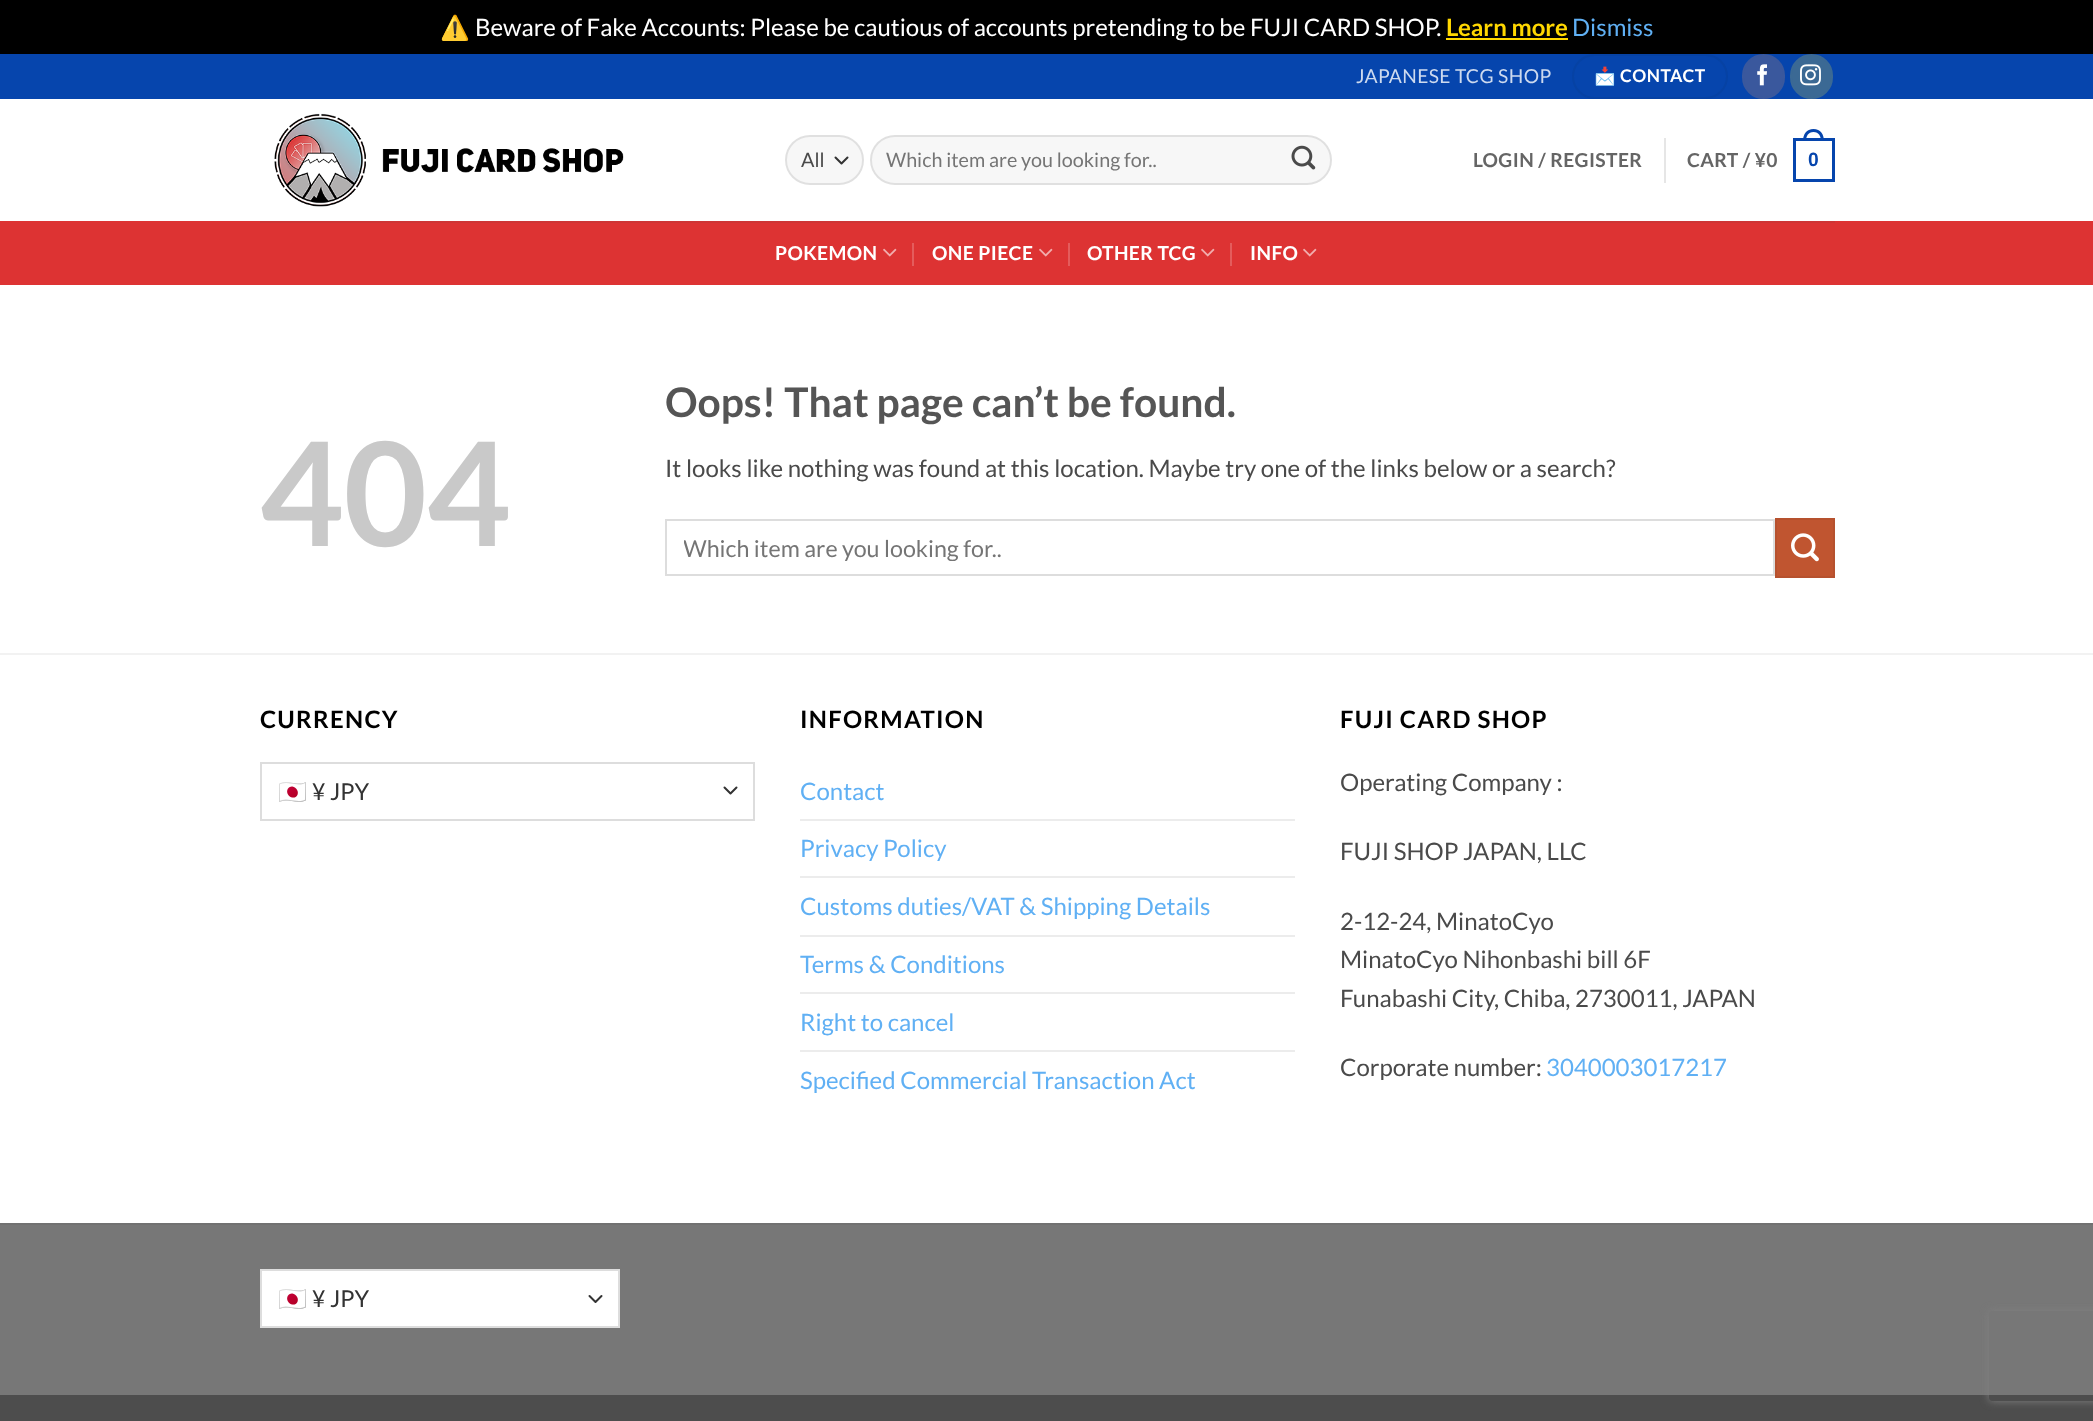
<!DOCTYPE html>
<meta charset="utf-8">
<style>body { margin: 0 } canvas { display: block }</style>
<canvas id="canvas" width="2093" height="1421"></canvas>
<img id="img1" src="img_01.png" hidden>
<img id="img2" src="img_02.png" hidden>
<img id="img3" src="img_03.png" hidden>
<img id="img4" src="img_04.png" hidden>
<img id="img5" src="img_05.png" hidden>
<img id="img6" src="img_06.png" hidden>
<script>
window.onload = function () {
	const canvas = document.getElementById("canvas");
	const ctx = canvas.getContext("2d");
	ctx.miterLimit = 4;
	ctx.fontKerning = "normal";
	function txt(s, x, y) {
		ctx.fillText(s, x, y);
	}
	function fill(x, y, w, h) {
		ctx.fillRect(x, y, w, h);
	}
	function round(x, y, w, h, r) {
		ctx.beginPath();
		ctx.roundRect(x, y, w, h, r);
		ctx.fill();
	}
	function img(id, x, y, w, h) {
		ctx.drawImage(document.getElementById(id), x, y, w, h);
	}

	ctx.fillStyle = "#000000";
	fill(0, 0, 2093, 1421);
	ctx.fillStyle = "#FFD700";
	fill(1446, 38, 122, 2);
	ctx.fillStyle = "#FFFFFF";
	fill(0, 99, 2093, 1124);
	ctx.fillStyle = "#0645AD";
	fill(0, 54, 2093, 45);
	ctx.beginPath();
	ctx.roundRect(1573, 55, 154, 43, 21.5);
	ctx.strokeStyle = "#0642A4";
	ctx.lineWidth = 2;
	ctx.stroke();
	ctx.fillStyle = "#3A589D";
	ctx.beginPath();
	ctx.roundRect(1743, 55, 41, 43, 20.5);
	ctx.fill();
	ctx.strokeStyle = "#3A589D";
	ctx.stroke();
	img("img1", 1757, 64, 10, 22);
	ctx.fillStyle = "#3B6994";
	ctx.beginPath();
	ctx.roundRect(1791, 55, 41, 43, 20.5);
	ctx.fill();
	ctx.strokeStyle = "#3B6994";
	ctx.stroke();
	img("img2", 1800, 64, 21, 22);
	img("img3", 274, 113, 350, 94);
	ctx.fillStyle = "#F7F7F7";
	round(785, 135, 79, 50, 25);
	ctx.beginPath();
	ctx.moveTo(835.5, 157.5);
	ctx.lineTo(841.5, 163.5);
	ctx.lineTo(847.5, 157.5);
	ctx.strokeStyle = "#333333";
	ctx.lineCap = "round";
	ctx.lineJoin = "round";
	ctx.stroke();
	ctx.beginPath();
	ctx.roundRect(786, 136, 77, 48, 24);
	ctx.strokeStyle = "rgba(0, 0, 0, 0.09)";
	ctx.lineJoin = "miter";
	ctx.stroke();
	round(870, 135, 462, 50, 25);
	ctx.beginPath();
	ctx.roundRect(871, 136, 460, 48, 24);
	ctx.stroke();
	img("img4", 1291, 145, 25, 25);
	ctx.fillStyle = "#E6E6E6";
	fill(1664, 138, 2, 45);
	ctx.strokeStyle = "#0645AD";
	ctx.lineWidth = 3;
	ctx.strokeRect(1794.5, 139.5, 39, 41);
	ctx.fillStyle = "#0645AD";
	ctx.beginPath();
	ctx.moveTo(1813.5, 129);
	ctx.bezierCurveTo(1820.5, 129, 1824, 134.5, 1824, 141);
	ctx.lineTo(1803, 141);
	ctx.bezierCurveTo(1803, 134.5, 1806.5, 129, 1813.5, 129);
	ctx.closePath();
	ctx.moveTo(1813.5, 132);
	ctx.bezierCurveTo(1819, 132, 1821, 136.5, 1821, 141);
	ctx.lineTo(1806, 141);
	ctx.bezierCurveTo(1806, 136.5, 1808, 132, 1813.5, 132);
	ctx.closePath();
	ctx.fill("evenodd");
	ctx.fillStyle = "#DD3333";
	fill(0, 221, 2093, 64);
	ctx.fillStyle = "#CE3535";
	fill(260, 221, 1575, 2);
	img("img5", 883, 248, 14, 9);
	ctx.fillStyle = "#E45C5C";
	fill(912, 243, 2, 23);
	img("img5", 1039, 248, 14, 9);
	fill(1068, 243, 2, 23);
	img("img5", 1201, 248, 14, 9);
	fill(1230, 243, 2, 23);
	img("img5", 1303, 248, 14, 9);
	ctx.strokeStyle = "#DDDDDD";
	ctx.lineWidth = 2;
	ctx.strokeRect(666, 520, 1108, 55);
	ctx.fillStyle = "#C05530";
	ctx.beginPath();
	ctx.rect(1776, 519, 58, 58);
	ctx.fill();
	ctx.strokeStyle = "#B6512E";
	ctx.stroke();
	img("img6", 1791, 533, 28, 29);
	ctx.fillStyle = "#F2F2F2";
	fill(0, 653, 2093, 2);
	ctx.beginPath();
	ctx.moveTo(724.5, 787.5);
	ctx.lineTo(730.5, 793.5);
	ctx.lineTo(736.5, 787.5);
	ctx.strokeStyle = "#333333";
	ctx.lineJoin = "round";
	ctx.stroke();
	ctx.strokeStyle = "#DDDDDD";
	ctx.lineJoin = "miter";
	ctx.strokeRect(261, 763, 493, 57);
	ctx.fillStyle = "#ECECEC";
	fill(800, 819, 495, 2);
	fill(800, 876, 495, 2);
	fill(800, 935, 495, 2);
	fill(800, 992, 495, 2);
	fill(800, 1050, 495, 2);
	ctx.fillStyle = "#777777";
	fill(0, 1225, 2093, 170);
	ctx.fillStyle = "#717171";
	fill(0, 1223, 2093, 2);
	ctx.fillStyle = "#FFFFFF";
	fill(262, 1271, 356, 55);
	ctx.beginPath();
	ctx.moveTo(589.5, 1296);
	ctx.lineTo(595.5, 1302);
	ctx.lineTo(601.5, 1296);
	ctx.strokeStyle = "#333333";
	ctx.lineJoin = "round";
	ctx.stroke();
	ctx.strokeStyle = "#DDDDDD";
	ctx.lineJoin = "miter";
	ctx.strokeRect(261, 1270, 358, 57);
	ctx.fillStyle = "#4D4D4D";
	fill(0, 1395, 2093, 26);
	ctx.save();
	ctx.beginPath();
	ctx.moveTo(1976, 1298);
	ctx.lineTo(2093, 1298);
	ctx.lineTo(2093, 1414);
	ctx.lineTo(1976, 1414);
	ctx.closePath();
	ctx.moveTo(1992, 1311);
	ctx.lineTo(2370, 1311);
	ctx.bezierCurveTo(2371.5, 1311, 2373, 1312.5, 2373, 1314);
	ctx.lineTo(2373, 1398);
	ctx.bezierCurveTo(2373, 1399.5, 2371.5, 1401, 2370, 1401);
	ctx.lineTo(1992, 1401);
	ctx.bezierCurveTo(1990.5, 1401, 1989, 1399.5, 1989, 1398);
	ctx.lineTo(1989, 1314);
	ctx.bezierCurveTo(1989, 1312.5, 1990.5, 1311, 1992, 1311);
	ctx.closePath();
	ctx.clip("evenodd");
	ctx.fillStyle = "#808080";
	ctx.filter = "blur(4px)";
	ctx.beginPath();
	ctx.roundRect(1989, 1311, 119, 90, 3);
	ctx.fill();
	ctx.filter = "none";
	ctx.restore();
	ctx.font = "24px Noto Color Emoji";
	ctx.fillStyle = "#FFFFFF";
	txt("⚠️", 440, 36);
	ctx.font = "24px Lato";
	txt("Beware of Fake Accounts: Please be cautious of accounts pretending to be FUJI CARD SHOP.", 475, 36);
	ctx.font = "bold 24px Lato";
	ctx.fillStyle = "#FFD700";
	txt("Learn more", 1446, 36);
	ctx.font = "24px Lato";
	ctx.fillStyle = "#60B0F4";
	txt("Dismiss", 1572, 36);
	ctx.letterSpacing = "0.4px";
	ctx.font = "19.25px Lato";
	ctx.fillStyle = "#CDDAEF";
	txt("JAPANESE TCG SHOP", 1356, 83);
	ctx.letterSpacing = "0.5px";
	ctx.font = "bold 17.5px Noto Color Emoji";
	ctx.fillStyle = "#FFFFFF";
	txt("📩", 1594, 82);
	ctx.font = "bold 17.5px Lato";
	txt("CONTACT", 1620, 82);
	ctx.letterSpacing = "0px";
	ctx.font = "19.75px Lato";
	ctx.fillStyle = "#4A4A4A";
	txt("All", 801, 167);
	ctx.fillStyle = "#757575";
	txt("Which item are you looking for..", 886, 167);
	ctx.letterSpacing = "0.4px";
	ctx.font = "bold 19.25px Lato";
	ctx.fillStyle = "#656565";
	txt("LOGIN / REGISTER", 1473, 167);
	txt("CART / ¥0", 1687, 167);
	ctx.font = "bold 19.25px Liberation Sans";
	ctx.fillStyle = "#0645AD";
	txt("0", 1808, 166);
	ctx.font = "bold 19.25px Lato";
	ctx.fillStyle = "#FFFFFF";
	txt("POKEMON", 775, 260);
	txt("ONE PIECE", 932, 260);
	txt("OTHER TCG", 1087, 260);
	txt("INFO", 1250, 260);
	ctx.letterSpacing = "0px";
	ctx.font = "bold 144px Lato";
	ctx.fillStyle = "#C9C9C9";
	txt("404", 260, 546);
	ctx.font = "bold 40.75px Lato";
	ctx.fillStyle = "#555555";
	txt("Oops! That page can’t be found.", 665, 417);
	ctx.font = "24px Lato";
	ctx.fillStyle = "#4A4A4A";
	txt("It looks like nothing was found at this location. Maybe try one of the links below or a search?", 665, 477);
	ctx.save();
	ctx.beginPath();
	ctx.rect(684, 534, 1067, 27);
	ctx.clip();
	ctx.font = "23.25px Lato";
	ctx.fillStyle = "#757575";
	txt("Which item are you looking for..", 683, 557);
	ctx.restore();
	ctx.letterSpacing = "1.25px";
	ctx.font = "bold 24px Lato";
	ctx.fillStyle = "#000000";
	txt("CURRENCY", 260, 728);
	ctx.save();
	ctx.beginPath();
	ctx.rect(279, 773, 441, 37);
	ctx.clip();
	ctx.letterSpacing = "0px";
	ctx.font = "23.25px Noto Color Emoji";
	ctx.fillStyle = "#333333";
	txt("🇯🇵", 278, 800);
	ctx.restore();
	ctx.letterSpacing = "0px";
	ctx.font = "23.25px Lato";
	ctx.fillStyle = "#333333";
	txt("¥ JPY", 312, 800);
	ctx.letterSpacing = "1.25px";
	ctx.font = "bold 24px Lato";
	ctx.fillStyle = "#000000";
	txt("INFORMATION", 800, 728);
	ctx.letterSpacing = "0px";
	ctx.font = "24px Lato";
	ctx.fillStyle = "#60B0F4";
	txt("Contact", 800, 800);
	txt("Privacy Policy", 800, 857);
	txt("Customs duties/VAT & Shipping Details", 800, 915);
	txt("Terms & Conditions", 800, 973);
	txt("Right to cancel", 800, 1031);
	txt("Specified Commercial Transaction Act", 800, 1089);
	ctx.letterSpacing = "1.25px";
	ctx.font = "bold 24px Lato";
	ctx.fillStyle = "#000000";
	txt("FUJI CARD SHOP", 1340, 728);
	ctx.letterSpacing = "0px";
	ctx.font = "24px Lato";
	ctx.fillStyle = "#4A4A4A";
	txt("Operating Company :", 1340, 791);
	txt("FUJI SHOP JAPAN, LLC", 1340, 860);
	txt("2-12-24, MinatoCyo", 1340, 930);
	txt("MinatoCyo Nihonbashi bill 6F", 1340, 968);
	txt("Funabashi City, Chiba, 2730011, JAPAN", 1340, 1007);
	txt("Corporate number:", 1340, 1076);
	ctx.fillStyle = "#60B0F4";
	txt("3040003017217", 1546, 1076);
	ctx.save();
	ctx.beginPath();
	ctx.rect(279, 1280, 306, 37);
	ctx.clip();
	ctx.font = "23.25px Noto Color Emoji";
	ctx.fillStyle = "#333333";
	txt("🇯🇵", 278, 1307);
	ctx.restore();
	ctx.font = "23.25px Lato";
	ctx.fillStyle = "#333333";
	txt("¥ JPY", 312, 1307);
};
</script>
